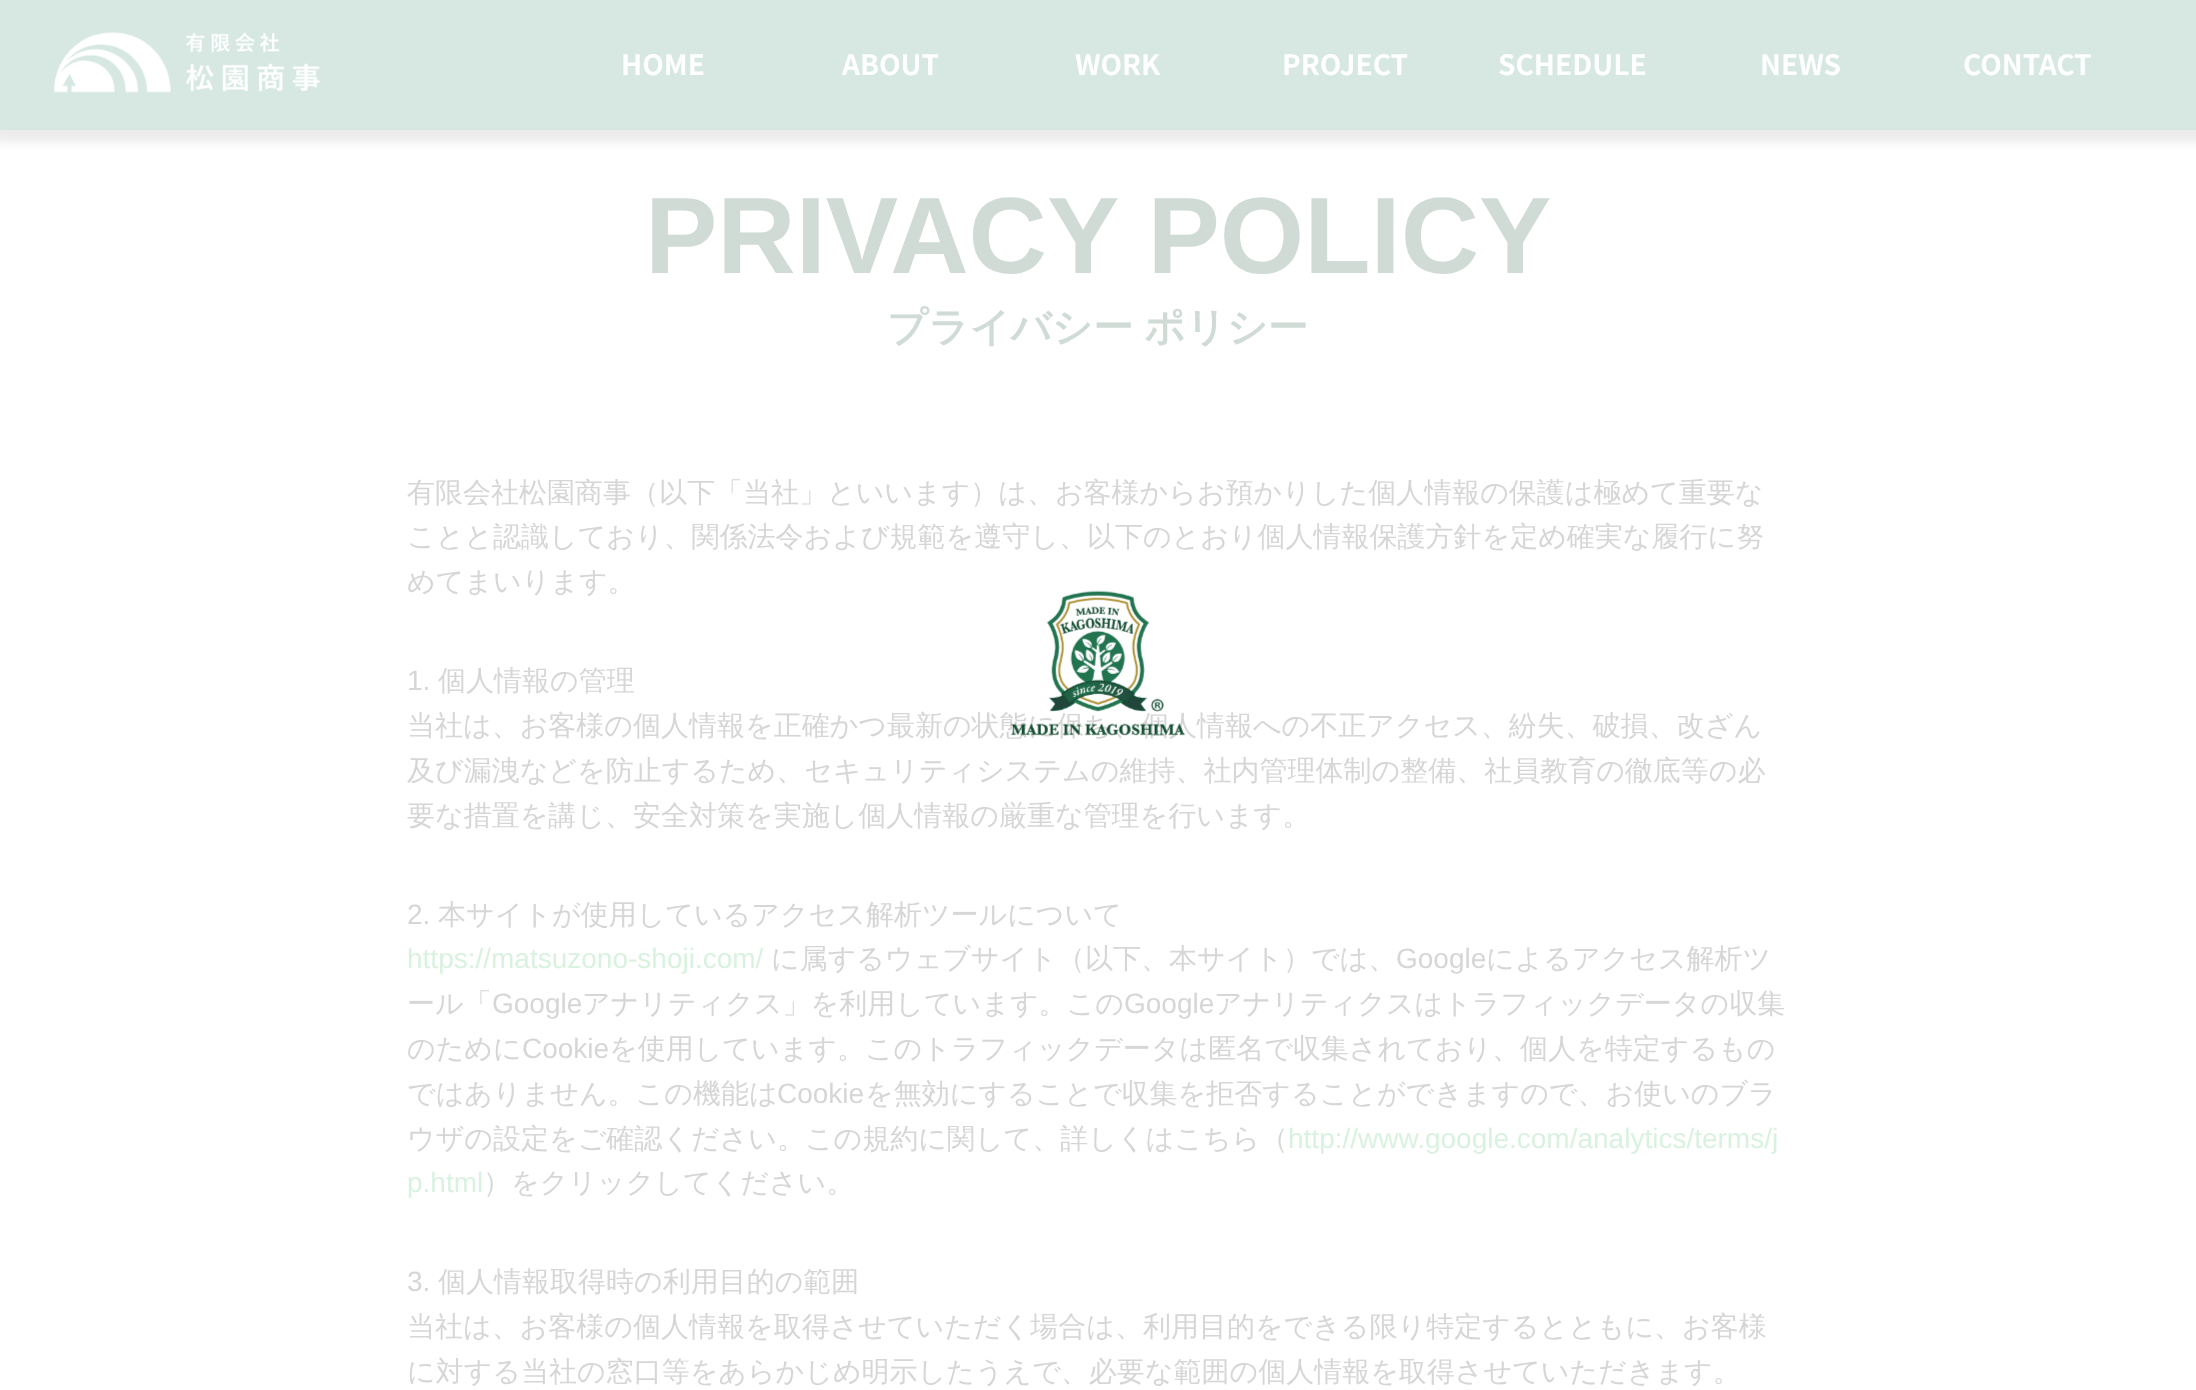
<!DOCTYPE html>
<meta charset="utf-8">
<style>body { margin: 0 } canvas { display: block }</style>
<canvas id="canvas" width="2196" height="1390"></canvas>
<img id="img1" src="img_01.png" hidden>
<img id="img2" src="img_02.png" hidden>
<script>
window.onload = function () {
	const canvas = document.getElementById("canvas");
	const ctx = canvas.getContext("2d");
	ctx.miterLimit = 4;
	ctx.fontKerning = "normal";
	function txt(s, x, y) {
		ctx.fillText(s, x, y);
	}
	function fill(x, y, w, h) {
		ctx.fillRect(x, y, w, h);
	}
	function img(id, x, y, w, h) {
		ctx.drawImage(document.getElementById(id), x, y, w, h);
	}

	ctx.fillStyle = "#FFFFFF";
	fill(0, 0, 2196, 1390);
	ctx.save();
	ctx.beginPath();
	ctx.moveTo(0, 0);
	ctx.lineTo(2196, 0);
	ctx.lineTo(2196, 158);
	ctx.lineTo(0, 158);
	ctx.closePath();
	ctx.moveTo(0, 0);
	ctx.lineTo(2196, 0);
	ctx.lineTo(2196, 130);
	ctx.lineTo(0, 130);
	ctx.closePath();
	ctx.clip("evenodd");
	ctx.fillStyle = "rgba(204, 204, 204, 0.4)";
	ctx.filter = "blur(5px)";
	ctx.beginPath();
	ctx.rect(-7, -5, 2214, 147);
	ctx.fill();
	ctx.filter = "none";
	ctx.restore();
	ctx.fillStyle = "rgba(204, 226, 218, 0.8)";
	fill(0, 0, 2196, 130);
	img("img1", 54, 31, 267, 62);
	ctx.font = "bold 28px Noto Sans JP";
	ctx.fillStyle = "#FFFFFF";
	txt("HOME", 621, 75);
	txt("ABOUT", 842, 75);
	txt("WORK", 1075, 75);
	txt("PROJECT", 1282, 75);
	txt("SCHEDULE", 1498, 75);
	txt("NEWS", 1760, 75);
	txt("CONTACT", 1963, 75);
	ctx.font = "bold 108.5px Liberation Sans";
	ctx.fillStyle = "#D0DBD6";
	txt("PRIVACY POLICY", 645, 273);
	ctx.wordSpacing = "-1px";
	ctx.font = "bold 40.25px WenQuanYi Zen Hei";
	txt("プライバシー ポリシー", 887, 341);
	ctx.wordSpacing = "0px";
	ctx.font = "500 28px WenQuanYi Zen Hei";
	ctx.fillStyle = "#D6D6D6";
	txt("有限会社松園商事（以下「当社」といいます）は、お客様からお預かりした個人情報の保護は極めて重要な", 407, 502);
	txt("ことと認識しており、関係法令および規範を遵守し、以下のとおり個人情報保護方針を定め確実な履行に努", 407, 546);
	txt("めてまいります。", 407, 591);
	ctx.font = "28px Liberation Sans";
	txt("1.", 407, 690);
	ctx.font = "500 28px WenQuanYi Zen Hei";
	txt("個人情報の管理", 438, 690);
	txt("当社は、お客様の個人情報を正確かつ最新の状態に保ち、個人情報への不正アクセス、紛失、破損、改ざん", 407, 735);
	txt("及び漏洩などを防止するため、セキュリティシステムの維持、社内管理体制の整備、社員教育の徹底等の必", 407, 780);
	txt("要な措置を講じ、安全対策を実施し個人情報の厳重な管理を行います。", 407, 825);
	ctx.font = "28px Liberation Sans";
	txt("2.", 407, 924);
	ctx.font = "500 28px WenQuanYi Zen Hei";
	txt("本サイトが使用しているアクセス解析ツールについて", 438, 924);
	ctx.font = "28px Liberation Sans";
	ctx.fillStyle = "#D9F2DF";
	txt("https://matsuzono-shoji.com/", 407, 968);
	ctx.font = "500 28px WenQuanYi Zen Hei";
	ctx.fillStyle = "#D6D6D6";
	txt("に属するウェブサイト（以下、本サイト）では、", 771, 968);
	ctx.font = "28px Liberation Sans";
	txt("Google", 1396, 968);
	ctx.font = "500 28px WenQuanYi Zen Hei";
	txt("によるアクセス解析ツ", 1486, 968);
	txt("ール「", 407, 1013);
	ctx.font = "28px Liberation Sans";
	txt("Google", 492, 1013);
	ctx.font = "500 28px WenQuanYi Zen Hei";
	txt("アナリティクス」を利用しています。この", 582, 1013);
	ctx.font = "28px Liberation Sans";
	txt("Google", 1124, 1013);
	ctx.font = "500 28px WenQuanYi Zen Hei";
	txt("アナリティクスはトラフィックデータの収集", 1214, 1013);
	txt("のために", 407, 1058);
	ctx.font = "28px Liberation Sans";
	txt("Cookie", 522, 1058);
	ctx.font = "500 28px WenQuanYi Zen Hei";
	txt("を使用しています。このトラフィックデータは匿名で収集されており、個人を特定するもの", 609, 1058);
	txt("ではありません。この機能は", 407, 1103);
	ctx.font = "28px Liberation Sans";
	txt("Cookie", 777, 1103);
	ctx.font = "500 28px WenQuanYi Zen Hei";
	txt("を無効にすることで収集を拒否することができますので、お使いのブラ", 865, 1103);
	txt("ウザの設定をご確認ください。この規約に関して、詳しくはこちら（", 407, 1148);
	ctx.font = "28px Liberation Sans";
	ctx.fillStyle = "#D9F2DF";
	txt("http://www.google.com/analytics/terms/j", 1288, 1148);
	txt("p.html", 407, 1192);
	ctx.font = "500 28px WenQuanYi Zen Hei";
	ctx.fillStyle = "#D6D6D6";
	txt("）をクリックしてください。", 483, 1192);
	ctx.font = "28px Liberation Sans";
	txt("3.", 407, 1291);
	ctx.font = "500 28px WenQuanYi Zen Hei";
	txt("個人情報取得時の利用目的の範囲", 438, 1291);
	txt("当社は、お客様の個人情報を取得させていただく場合は、利用目的をできる限り特定するとともに、お客様", 407, 1336);
	txt("に対する当社の窓口等をあらかじめ明示したうえで、必要な範囲の個人情報を取得させていただきます。", 407, 1381);
	img("img2", 1010, 590, 175, 146);
};
</script>
